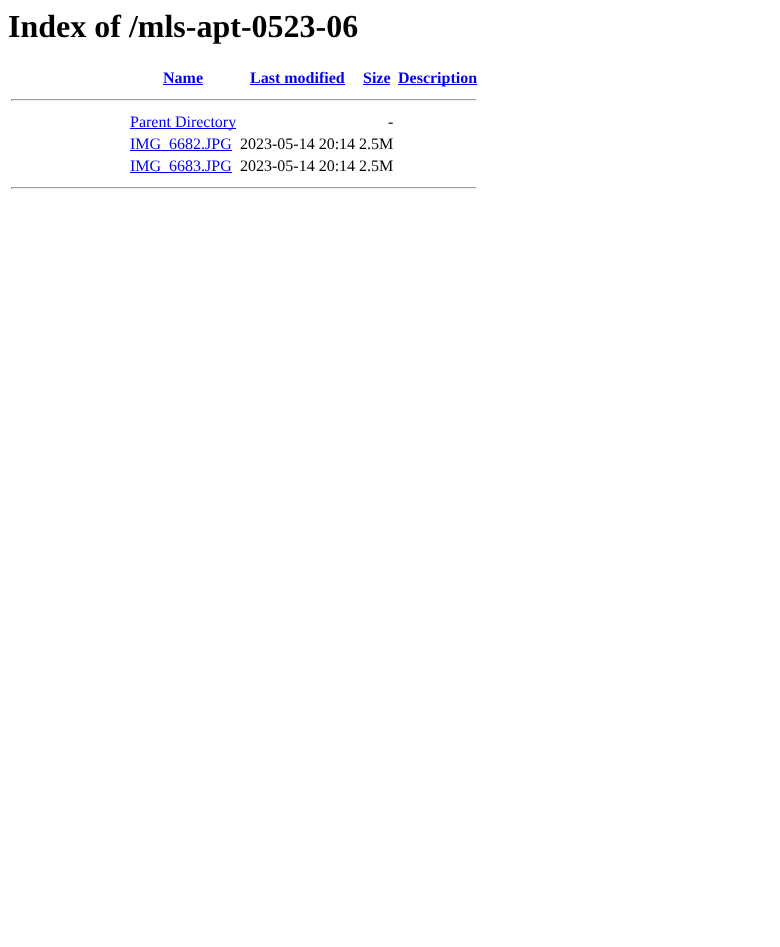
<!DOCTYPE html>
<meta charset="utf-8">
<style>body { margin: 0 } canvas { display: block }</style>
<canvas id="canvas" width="780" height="947"></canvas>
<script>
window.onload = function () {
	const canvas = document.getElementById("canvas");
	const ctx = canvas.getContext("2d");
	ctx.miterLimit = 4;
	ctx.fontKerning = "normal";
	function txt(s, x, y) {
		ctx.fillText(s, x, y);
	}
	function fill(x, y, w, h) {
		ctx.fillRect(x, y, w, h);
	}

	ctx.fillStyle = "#FFFFFF";
	fill(0, 0, 780, 947);
	ctx.fillStyle = "#0000EE";
	fill(163, 84, 40, 1);
	fill(250, 84, 95, 1);
	fill(363, 84, 27, 1);
	fill(398, 84, 79, 1);
	ctx.fillStyle = "#9F9F9F";
	fill(11, 99, 466, 1);
	ctx.fillStyle = "#EEEEEE";
	fill(476, 99, 1, 2);
	fill(11, 100, 466, 1);
	ctx.fillStyle = "#9F9F9F";
	fill(11, 99, 1, 2);
	ctx.fillStyle = "#0000EE";
	fill(130, 128, 106, 1);
	fill(130, 150, 102, 1);
	fill(130, 172, 102, 1);
	ctx.fillStyle = "#9F9F9F";
	fill(11, 187, 466, 1);
	ctx.fillStyle = "#EEEEEE";
	fill(476, 187, 1, 2);
	fill(11, 188, 466, 1);
	ctx.fillStyle = "#9F9F9F";
	fill(11, 187, 1, 2);
	ctx.font = "bold 32px Liberation Serif";
	ctx.fillStyle = "#000000";
	txt("Index of /mls-apt-0523-06", 8, 37);
	ctx.font = "bold 16px Liberation Serif";
	ctx.fillStyle = "#0000EE";
	txt("Name", 163, 83);
	txt("Last modified", 250, 83);
	txt("Size", 363, 83);
	txt("Description", 398, 83);
	ctx.font = "16px Liberation Serif";
	txt("Parent Directory", 130, 127);
	ctx.fillStyle = "#000000";
	txt("-", 388, 127);
	ctx.fillStyle = "#0000EE";
	txt("IMG_6682.JPG", 130, 149);
	ctx.fillStyle = "#000000";
	txt("2023-05-14 20:14 2.5M", 240, 149);
	ctx.fillStyle = "#0000EE";
	txt("IMG_6683.JPG", 130, 171);
	ctx.fillStyle = "#000000";
	txt("2023-05-14 20:14 2.5M", 240, 171);
};
</script>
